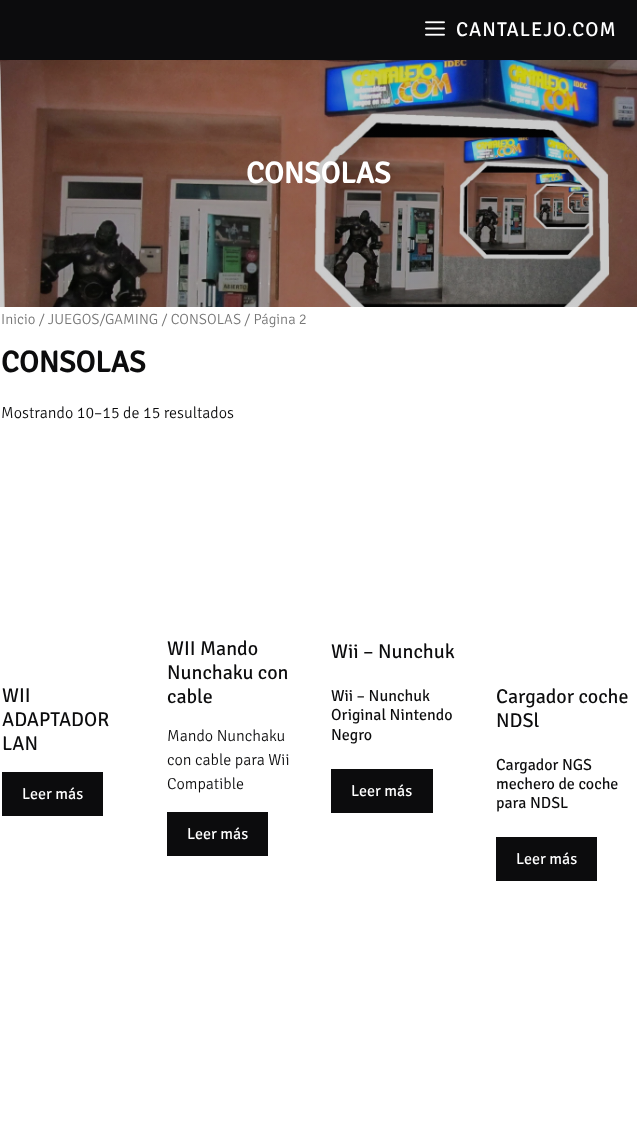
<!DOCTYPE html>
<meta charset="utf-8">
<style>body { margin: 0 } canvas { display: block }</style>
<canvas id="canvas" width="637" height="1142"></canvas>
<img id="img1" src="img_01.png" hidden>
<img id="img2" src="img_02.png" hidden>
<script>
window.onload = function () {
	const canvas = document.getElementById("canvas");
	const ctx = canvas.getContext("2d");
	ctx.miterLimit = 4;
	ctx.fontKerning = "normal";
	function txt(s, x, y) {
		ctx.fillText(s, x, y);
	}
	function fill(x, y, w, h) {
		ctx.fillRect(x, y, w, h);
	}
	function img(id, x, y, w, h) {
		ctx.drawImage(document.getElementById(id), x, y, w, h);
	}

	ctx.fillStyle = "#FFFFFF";
	fill(0, 0, 637, 1142);
	ctx.fillStyle = "#0C0C0D";
	fill(0, 0, 637, 60);
	img("img1", 425, 21, 20, 15);
	img("img2", 0, 60, 637, 247);
	fill(2, 772, 101, 44);
	fill(167, 812, 101, 44);
	fill(331, 769, 102, 44);
	fill(496, 837, 101, 44);
	ctx.letterSpacing = "1px";
	ctx.font = "300 20px Signika";
	ctx.fillStyle = "#FFFFFF";
	txt("CANTALEJO.COM", 456, 36);
	ctx.letterSpacing = "0px";
	ctx.font = "bold 30px Signika";
	txt("CONSOLAS", 246, 183);
	ctx.font = "300 14.75px Signika Negative";
	ctx.fillStyle = "#767676";
	txt("Inicio / JUEGOS/GAMING / CONSOLAS / Página 2", 1, 324);
	ctx.font = "bold 30px Signika";
	ctx.fillStyle = "#0C0C0D";
	txt("CONSOLAS", 1, 372);
	ctx.font = "300 16px Signika Negative";
	txt("Mostrando 10–15 de 15 resultados", 1, 418);
	ctx.font = "20px Signika Negative";
	txt("WII", 2, 702);
	txt("ADAPTADOR", 2, 726);
	txt("LAN", 2, 750);
	ctx.font = "16px Signika Negative";
	ctx.fillStyle = "#FFFFFF";
	txt("Leer más", 22, 799);
	ctx.font = "20px Signika Negative";
	ctx.fillStyle = "#0C0C0D";
	txt("WII Mando", 167, 655);
	txt("Nunchaku con", 167, 679);
	txt("cable", 167, 703);
	ctx.font = "300 16px Signika Negative";
	txt("Mando Nunchaku", 167, 741);
	txt("con cable para Wii", 167, 765);
	txt("Compatible", 167, 789);
	ctx.font = "16px Signika Negative";
	ctx.fillStyle = "#FFFFFF";
	txt("Leer más", 187, 839);
	ctx.font = "20px Signika Negative";
	ctx.fillStyle = "#0C0C0D";
	txt("Wii – Nunchuk", 331, 658);
	ctx.font = "16px Signika Negative";
	txt("Wii – Nunchuk", 331, 701);
	txt("Original Nintendo", 331, 720);
	txt("Negro", 331, 740);
	ctx.fillStyle = "#FFFFFF";
	txt("Leer más", 351, 796);
	ctx.font = "20px Signika Negative";
	ctx.fillStyle = "#0C0C0D";
	txt("Cargador coche", 496, 703);
	txt("NDSl", 496, 727);
	ctx.font = "16px Signika Negative";
	txt("Cargador NGS", 496, 770);
	txt("mechero de coche", 496, 789);
	txt("para NDSL", 496, 808);
	ctx.fillStyle = "#FFFFFF";
	txt("Leer más", 516, 864);
};
</script>
